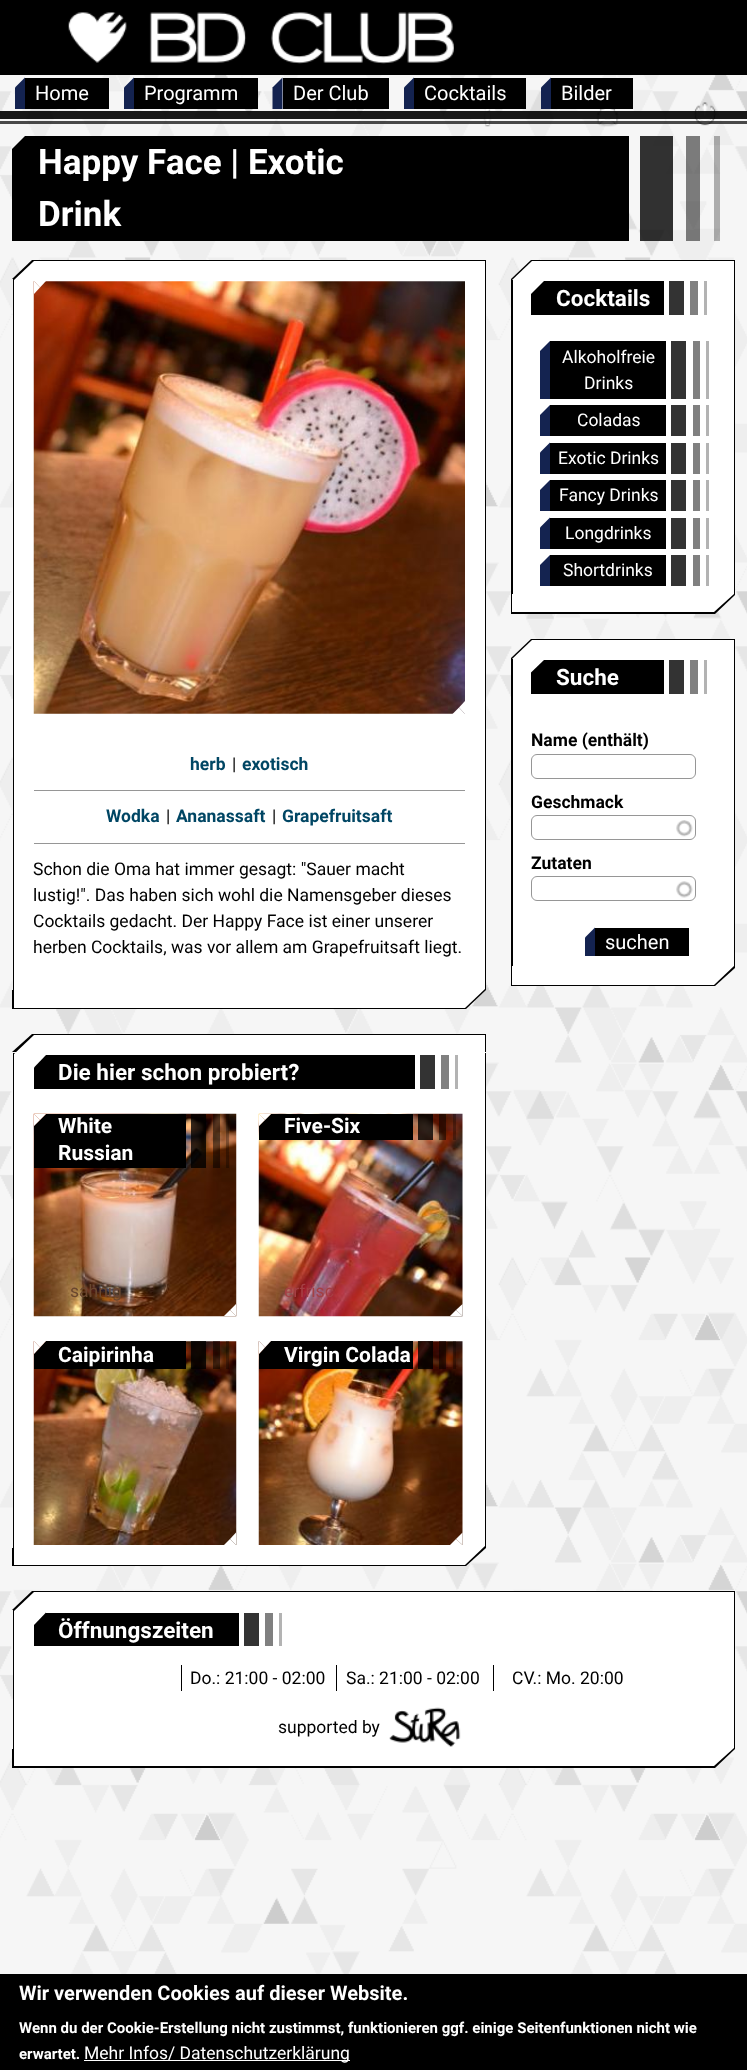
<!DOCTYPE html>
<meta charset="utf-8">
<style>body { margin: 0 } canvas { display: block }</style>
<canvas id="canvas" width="747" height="2070"></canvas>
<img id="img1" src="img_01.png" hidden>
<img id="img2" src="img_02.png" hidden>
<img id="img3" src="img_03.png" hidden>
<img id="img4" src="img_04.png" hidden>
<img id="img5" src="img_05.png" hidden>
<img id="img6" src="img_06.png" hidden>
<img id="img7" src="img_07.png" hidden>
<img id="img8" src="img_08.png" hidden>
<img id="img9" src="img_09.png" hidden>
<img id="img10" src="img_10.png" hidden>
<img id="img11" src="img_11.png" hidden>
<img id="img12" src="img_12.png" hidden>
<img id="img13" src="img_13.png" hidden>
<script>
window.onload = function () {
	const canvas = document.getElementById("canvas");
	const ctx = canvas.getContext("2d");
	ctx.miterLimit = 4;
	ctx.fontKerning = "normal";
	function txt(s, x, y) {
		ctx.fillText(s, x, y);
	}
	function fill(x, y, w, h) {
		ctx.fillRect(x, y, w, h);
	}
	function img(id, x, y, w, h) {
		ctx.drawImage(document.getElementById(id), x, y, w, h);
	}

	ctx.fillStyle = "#FFFFFF";
	fill(0, 0, 747, 2070);
	img("img1", 0, 75, 747, 1899);
	ctx.fillStyle = "#000000";
	fill(0, 0, 747, 75);
	img("img2", 68, 12, 386, 52);
	img("img3", 483, 109, 9, 18);
	img("img4", 596, 109, 23, 18);
	img("img5", 693, 102, 24, 24);
	fill(25, 78, 84, 31);
	ctx.fillStyle = "#142350";
	ctx.beginPath();
	ctx.moveTo(25, 77.5);
	ctx.lineTo(25, 109);
	ctx.lineTo(15, 109);
	ctx.lineTo(15, 87.5);
	ctx.closePath();
	ctx.fill();
	ctx.fillStyle = "#000000";
	fill(134, 78, 124, 31);
	ctx.fillStyle = "#142350";
	ctx.beginPath();
	ctx.moveTo(134, 77.5);
	ctx.lineTo(134, 109);
	ctx.lineTo(124, 109);
	ctx.lineTo(124, 87.5);
	ctx.closePath();
	ctx.fill();
	ctx.fillStyle = "#000000";
	fill(283, 78, 106, 31);
	ctx.fillStyle = "#142350";
	ctx.beginPath();
	ctx.moveTo(282.5, 77.5);
	ctx.lineTo(282.5, 109);
	ctx.lineTo(272.5, 109);
	ctx.lineTo(272.5, 87.5);
	ctx.closePath();
	ctx.fill();
	ctx.fillStyle = "#000000";
	fill(414, 78, 112, 31);
	ctx.fillStyle = "#142350";
	ctx.beginPath();
	ctx.moveTo(414, 77.5);
	ctx.lineTo(414, 109);
	ctx.lineTo(404, 109);
	ctx.lineTo(404, 87.5);
	ctx.closePath();
	ctx.fill();
	ctx.fillStyle = "#000000";
	fill(551, 78, 82, 31);
	ctx.fillStyle = "#142350";
	ctx.beginPath();
	ctx.moveTo(551, 77.5);
	ctx.lineTo(551, 109);
	ctx.lineTo(541, 109);
	ctx.lineTo(541, 87.5);
	ctx.closePath();
	ctx.fill();
	ctx.fillStyle = "rgba(0, 0, 0, 0.9)";
	fill(0, 111, 747, 8);
	ctx.fillStyle = "rgba(0, 0, 0, 0.7)";
	fill(0, 121, 747, 3);
	ctx.fillStyle = "#000000";
	fill(25, 136, 604, 105);
	ctx.beginPath();
	ctx.moveTo(25, 136);
	ctx.lineTo(25, 241);
	ctx.lineTo(12, 241);
	ctx.lineTo(12, 149);
	ctx.closePath();
	ctx.fill();
	ctx.fillStyle = "rgba(0, 0, 0, 0.5)";
	fill(686, 136, 14, 105);
	ctx.fillStyle = "rgba(0, 0, 0, 0.3)";
	fill(714, 136, 6, 105);
	ctx.fillStyle = "rgba(0, 0, 0, 0.8)";
	fill(640, 136, 33, 105);
	ctx.fillStyle = "#000000";
	fill(511, 279, 224, 316);
	ctx.beginPath();
	ctx.moveTo(735, 279);
	ctx.lineTo(511, 279);
	ctx.lineTo(531, 260);
	ctx.lineTo(735, 260);
	ctx.closePath();
	ctx.fill();
	ctx.fillStyle = "#FFFFFF";
	fill(513, 280, 221, 314);
	ctx.beginPath();
	ctx.moveTo(734, 280);
	ctx.lineTo(512, 280);
	ctx.lineTo(532, 261);
	ctx.lineTo(734, 261);
	ctx.closePath();
	ctx.fill();
	ctx.fillStyle = "#000000";
	fill(544, 281, 120, 34);
	ctx.beginPath();
	ctx.moveTo(544, 281);
	ctx.lineTo(544, 315);
	ctx.lineTo(531, 315);
	ctx.lineTo(531, 294);
	ctx.closePath();
	ctx.fill();
	ctx.fillStyle = "#808080";
	fill(690, 281, 8, 34);
	ctx.fillStyle = "#B3B3B3";
	fill(704, 281, 3, 34);
	ctx.fillStyle = "#333333";
	fill(669, 281, 15, 34);
	ctx.fillStyle = "#000000";
	fill(550, 341, 116, 58);
	ctx.fillStyle = "#142350";
	ctx.beginPath();
	ctx.moveTo(550, 341);
	ctx.lineTo(550, 399);
	ctx.lineTo(540, 399);
	ctx.lineTo(540, 351);
	ctx.closePath();
	ctx.fill();
	ctx.fillStyle = "#808080";
	fill(693, 341, 7, 58);
	ctx.fillStyle = "#B3B3B3";
	fill(706, 341, 3, 58);
	ctx.fillStyle = "#333333";
	fill(671, 341, 15, 58);
	ctx.fillStyle = "#000000";
	fill(550, 405, 116, 31);
	ctx.fillStyle = "#142350";
	ctx.beginPath();
	ctx.moveTo(550, 405);
	ctx.lineTo(550, 436);
	ctx.lineTo(540, 436);
	ctx.lineTo(540, 415);
	ctx.closePath();
	ctx.fill();
	ctx.fillStyle = "#808080";
	fill(693, 405, 7, 31);
	ctx.fillStyle = "#B3B3B3";
	fill(706, 405, 3, 31);
	ctx.fillStyle = "#333333";
	fill(671, 405, 15, 31);
	ctx.fillStyle = "#000000";
	fill(550, 443, 116, 31);
	ctx.fillStyle = "#142350";
	ctx.beginPath();
	ctx.moveTo(550, 442.5);
	ctx.lineTo(550, 474);
	ctx.lineTo(540, 474);
	ctx.lineTo(540, 452.5);
	ctx.closePath();
	ctx.fill();
	ctx.fillStyle = "#808080";
	fill(693, 443, 7, 31);
	ctx.fillStyle = "#B3B3B3";
	fill(706, 443, 3, 31);
	ctx.fillStyle = "#333333";
	fill(671, 443, 15, 31);
	ctx.fillStyle = "#000000";
	fill(550, 480, 116, 31);
	ctx.fillStyle = "#142350";
	ctx.beginPath();
	ctx.moveTo(550, 480);
	ctx.lineTo(550, 511);
	ctx.lineTo(540, 511);
	ctx.lineTo(540, 490);
	ctx.closePath();
	ctx.fill();
	ctx.fillStyle = "#808080";
	fill(693, 480, 7, 31);
	ctx.fillStyle = "#B3B3B3";
	fill(706, 480, 3, 31);
	ctx.fillStyle = "#333333";
	fill(671, 480, 15, 31);
	ctx.fillStyle = "#000000";
	fill(550, 518, 116, 31);
	ctx.fillStyle = "#142350";
	ctx.beginPath();
	ctx.moveTo(550, 517.5);
	ctx.lineTo(550, 549);
	ctx.lineTo(540, 549);
	ctx.lineTo(540, 527.5);
	ctx.closePath();
	ctx.fill();
	ctx.fillStyle = "#808080";
	fill(693, 518, 7, 31);
	ctx.fillStyle = "#B3B3B3";
	fill(706, 518, 3, 31);
	ctx.fillStyle = "#333333";
	fill(671, 518, 15, 31);
	ctx.fillStyle = "#000000";
	fill(550, 555, 116, 31);
	ctx.fillStyle = "#142350";
	ctx.beginPath();
	ctx.moveTo(550, 555);
	ctx.lineTo(550, 586);
	ctx.lineTo(540, 586);
	ctx.lineTo(540, 565);
	ctx.closePath();
	ctx.fill();
	ctx.fillStyle = "#808080";
	fill(693, 555, 7, 31);
	ctx.fillStyle = "#B3B3B3";
	fill(706, 555, 3, 31);
	ctx.fillStyle = "#333333";
	fill(671, 555, 15, 31);
	ctx.fillStyle = "#000000";
	ctx.beginPath();
	ctx.moveTo(511, 595);
	ctx.lineTo(735, 595);
	ctx.lineTo(715, 614);
	ctx.lineTo(511, 614);
	ctx.closePath();
	ctx.fill();
	ctx.fillStyle = "#FFFFFF";
	ctx.beginPath();
	ctx.moveTo(512, 594);
	ctx.lineTo(734, 594);
	ctx.lineTo(714, 612);
	ctx.lineTo(512, 612);
	ctx.closePath();
	ctx.fill();
	ctx.fillStyle = "#000000";
	fill(511, 658, 224, 310);
	ctx.beginPath();
	ctx.moveTo(735, 658);
	ctx.lineTo(511, 658);
	ctx.lineTo(531, 639);
	ctx.lineTo(735, 639);
	ctx.closePath();
	ctx.fill();
	ctx.fillStyle = "#FFFFFF";
	fill(513, 659, 221, 307);
	ctx.beginPath();
	ctx.moveTo(734, 659);
	ctx.lineTo(512, 659);
	ctx.lineTo(532, 640);
	ctx.lineTo(734, 640);
	ctx.closePath();
	ctx.fill();
	ctx.fillStyle = "#000000";
	fill(544, 660, 120, 34);
	ctx.beginPath();
	ctx.moveTo(544, 660);
	ctx.lineTo(544, 694);
	ctx.lineTo(531, 694);
	ctx.lineTo(531, 672.5);
	ctx.closePath();
	ctx.fill();
	ctx.fillStyle = "#808080";
	fill(690, 660, 8, 34);
	ctx.fillStyle = "#B3B3B3";
	fill(704, 660, 3, 34);
	ctx.fillStyle = "#333333";
	fill(669, 660, 15, 34);
	ctx.beginPath();
	ctx.roundRect(531.5, 754.5, 164, 24, 5.5);
	ctx.strokeStyle = "#969696";
	ctx.stroke();
	img("img6", 676, 820, 17, 17);
	ctx.beginPath();
	ctx.roundRect(531.5, 815.5, 164, 24, 5.5);
	ctx.stroke();
	img("img7", 676, 881, 17, 17);
	ctx.beginPath();
	ctx.roundRect(531.5, 876.5, 164, 24, 5.5);
	ctx.stroke();
	ctx.fillStyle = "#000000";
	fill(595, 928, 94, 28);
	ctx.fillStyle = "#142350";
	ctx.beginPath();
	ctx.moveTo(595, 927.5);
	ctx.lineTo(595, 956);
	ctx.lineTo(585, 956);
	ctx.lineTo(585, 937.5);
	ctx.closePath();
	ctx.fill();
	ctx.fillStyle = "#000000";
	ctx.beginPath();
	ctx.moveTo(511, 968);
	ctx.lineTo(735, 968);
	ctx.lineTo(715, 986);
	ctx.lineTo(511, 986);
	ctx.closePath();
	ctx.fill();
	ctx.fillStyle = "#FFFFFF";
	ctx.beginPath();
	ctx.moveTo(512, 966);
	ctx.lineTo(734, 966);
	ctx.lineTo(714, 985);
	ctx.lineTo(512, 985);
	ctx.closePath();
	ctx.fill();
	ctx.fillStyle = "#000000";
	fill(13, 279, 473, 711);
	ctx.beginPath();
	ctx.moveTo(486, 279);
	ctx.lineTo(12, 279);
	ctx.lineTo(32, 260);
	ctx.lineTo(486, 260);
	ctx.closePath();
	ctx.fill();
	ctx.fillStyle = "#FFFFFF";
	fill(14, 280, 471, 709);
	ctx.beginPath();
	ctx.moveTo(485, 280);
	ctx.lineTo(14, 280);
	ctx.lineTo(34, 261);
	ctx.lineTo(485, 261);
	ctx.closePath();
	ctx.fill();
	img("img8", 33, 281, 432, 433);
	ctx.beginPath();
	ctx.moveTo(34, 281);
	ctx.lineTo(46, 281);
	ctx.lineTo(40, 287.5);
	ctx.closePath();
	ctx.fill();
	ctx.beginPath();
	ctx.moveTo(34, 294);
	ctx.lineTo(34, 281);
	ctx.lineTo(40, 287.5);
	ctx.closePath();
	ctx.fill();
	ctx.beginPath();
	ctx.moveTo(465, 701);
	ctx.lineTo(465, 714);
	ctx.lineTo(459, 707.5);
	ctx.closePath();
	ctx.fill();
	ctx.beginPath();
	ctx.moveTo(465, 714);
	ctx.lineTo(452.5, 714);
	ctx.lineTo(459, 707.5);
	ctx.closePath();
	ctx.fill();
	ctx.fillStyle = "#969696";
	fill(34, 790, 431, 1);
	fill(34, 843, 431, 1);
	ctx.fillStyle = "#000000";
	ctx.beginPath();
	ctx.moveTo(12, 990);
	ctx.lineTo(486, 990);
	ctx.lineTo(466, 1009);
	ctx.lineTo(12, 1009);
	ctx.closePath();
	ctx.fill();
	ctx.fillStyle = "#FFFFFF";
	ctx.beginPath();
	ctx.moveTo(14, 989);
	ctx.lineTo(485, 989);
	ctx.lineTo(465, 1008);
	ctx.lineTo(14, 1008);
	ctx.closePath();
	ctx.fill();
	ctx.fillStyle = "#000000";
	fill(13, 1053, 473, 495);
	ctx.beginPath();
	ctx.moveTo(486, 1052);
	ctx.lineTo(12, 1052);
	ctx.lineTo(32, 1034);
	ctx.lineTo(486, 1034);
	ctx.closePath();
	ctx.fill();
	ctx.fillStyle = "#FFFFFF";
	fill(14, 1054, 471, 492);
	ctx.beginPath();
	ctx.moveTo(485, 1054);
	ctx.lineTo(14, 1054);
	ctx.lineTo(34, 1035);
	ctx.lineTo(485, 1035);
	ctx.closePath();
	ctx.fill();
	ctx.fillStyle = "#000000";
	fill(46, 1055, 369, 34);
	ctx.beginPath();
	ctx.moveTo(46, 1055);
	ctx.lineTo(46, 1089);
	ctx.lineTo(34, 1089);
	ctx.lineTo(34, 1067.5);
	ctx.closePath();
	ctx.fill();
	ctx.fillStyle = "#808080";
	fill(441, 1055, 8, 34);
	ctx.fillStyle = "#B3B3B3";
	fill(455, 1055, 3, 34);
	ctx.fillStyle = "#333333";
	fill(420, 1055, 15, 34);
	img("img9", 33, 1113, 204, 204);
	ctx.fillStyle = "#000000";
	ctx.beginPath();
	ctx.moveTo(46, 1114);
	ctx.lineTo(46, 1168);
	ctx.lineTo(34, 1168);
	ctx.lineTo(34, 1126);
	ctx.closePath();
	ctx.fill();
	ctx.fillStyle = "#FFFFFF";
	ctx.beginPath();
	ctx.moveTo(34, 1114);
	ctx.lineTo(46, 1114);
	ctx.lineTo(40, 1120);
	ctx.closePath();
	ctx.fill();
	ctx.beginPath();
	ctx.moveTo(34, 1126);
	ctx.lineTo(34, 1114);
	ctx.lineTo(40, 1120);
	ctx.closePath();
	ctx.fill();
	ctx.fillStyle = "#000000";
	fill(46, 1114, 140, 54);
	ctx.fillStyle = "rgba(0, 0, 0, 0.5)";
	fill(213, 1114, 7, 54);
	ctx.fillStyle = "rgba(0, 0, 0, 0.3)";
	fill(226, 1114, 3, 54);
	ctx.fillStyle = "rgba(0, 0, 0, 0.8)";
	fill(191, 1114, 15, 54);
	img("img10", 258, 1113, 205, 204);
	img("img11", 33, 1341, 204, 204);
	img("img12", 258, 1341, 205, 204);
	ctx.fillStyle = "#000000";
	ctx.beginPath();
	ctx.moveTo(271, 1341);
	ctx.lineTo(271, 1369);
	ctx.lineTo(259, 1369);
	ctx.lineTo(259, 1354);
	ctx.closePath();
	ctx.fill();
	ctx.fillStyle = "#FFFFFF";
	ctx.beginPath();
	ctx.moveTo(259, 1341);
	ctx.lineTo(271, 1341);
	ctx.lineTo(265, 1347.5);
	ctx.closePath();
	ctx.fill();
	ctx.beginPath();
	ctx.moveTo(259, 1354);
	ctx.lineTo(259, 1341);
	ctx.lineTo(265, 1347.5);
	ctx.closePath();
	ctx.moveTo(236, 1304);
	ctx.lineTo(236, 1316);
	ctx.lineTo(230, 1310);
	ctx.closePath();
	ctx.fill();
	ctx.beginPath();
	ctx.moveTo(236, 1316);
	ctx.lineTo(224, 1316);
	ctx.lineTo(230, 1310);
	ctx.closePath();
	ctx.fill();
	ctx.fillStyle = "#000000";
	ctx.beginPath();
	ctx.moveTo(271, 1114);
	ctx.lineTo(271, 1140);
	ctx.lineTo(259, 1140);
	ctx.lineTo(259, 1126);
	ctx.closePath();
	ctx.fill();
	ctx.fillStyle = "#FFFFFF";
	ctx.beginPath();
	ctx.moveTo(259, 1114);
	ctx.lineTo(271, 1114);
	ctx.lineTo(265, 1120);
	ctx.closePath();
	ctx.fill();
	ctx.beginPath();
	ctx.moveTo(259, 1126);
	ctx.lineTo(259, 1114);
	ctx.lineTo(265, 1120);
	ctx.closePath();
	ctx.fill();
	ctx.fillStyle = "#000000";
	fill(271, 1114, 142, 26);
	ctx.fillStyle = "rgba(0, 0, 0, 0.5)";
	fill(439, 1114, 7, 26);
	ctx.fillStyle = "rgba(0, 0, 0, 0.3)";
	fill(453, 1114, 3, 26);
	ctx.fillStyle = "rgba(0, 0, 0, 0.8)";
	fill(418, 1114, 15, 26);
	ctx.fillStyle = "#FFFFFF";
	ctx.beginPath();
	ctx.moveTo(462.5, 1304);
	ctx.lineTo(462.5, 1316);
	ctx.lineTo(456, 1310);
	ctx.closePath();
	ctx.fill();
	ctx.beginPath();
	ctx.moveTo(462.5, 1316);
	ctx.lineTo(450, 1316);
	ctx.lineTo(456, 1310);
	ctx.closePath();
	ctx.fill();
	ctx.fillStyle = "#000000";
	ctx.beginPath();
	ctx.moveTo(46, 1341);
	ctx.lineTo(46, 1369);
	ctx.lineTo(34, 1369);
	ctx.lineTo(34, 1354);
	ctx.closePath();
	ctx.fill();
	ctx.fillStyle = "#FFFFFF";
	ctx.beginPath();
	ctx.moveTo(34, 1341);
	ctx.lineTo(46, 1341);
	ctx.lineTo(40, 1347.5);
	ctx.closePath();
	ctx.fill();
	ctx.beginPath();
	ctx.moveTo(34, 1354);
	ctx.lineTo(34, 1341);
	ctx.lineTo(40, 1347.5);
	ctx.closePath();
	ctx.fill();
	ctx.fillStyle = "#000000";
	fill(46, 1341, 140, 28);
	ctx.fillStyle = "rgba(0, 0, 0, 0.5)";
	fill(213, 1341, 7, 28);
	ctx.fillStyle = "rgba(0, 0, 0, 0.3)";
	fill(226, 1341, 3, 28);
	ctx.fillStyle = "rgba(0, 0, 0, 0.8)";
	fill(191, 1341, 15, 28);
	ctx.fillStyle = "#FFFFFF";
	ctx.beginPath();
	ctx.moveTo(236, 1532.5);
	ctx.lineTo(236, 1545);
	ctx.lineTo(230, 1539);
	ctx.closePath();
	ctx.fill();
	ctx.beginPath();
	ctx.moveTo(236, 1545);
	ctx.lineTo(224, 1545);
	ctx.lineTo(230, 1539);
	ctx.closePath();
	ctx.fill();
	ctx.fillStyle = "#000000";
	fill(271, 1341, 142, 28);
	ctx.fillStyle = "rgba(0, 0, 0, 0.5)";
	fill(439, 1341, 7, 28);
	ctx.fillStyle = "rgba(0, 0, 0, 0.3)";
	fill(453, 1341, 3, 28);
	ctx.fillStyle = "rgba(0, 0, 0, 0.8)";
	fill(418, 1341, 15, 28);
	ctx.fillStyle = "#FFFFFF";
	ctx.beginPath();
	ctx.moveTo(462.5, 1532.5);
	ctx.lineTo(462.5, 1545);
	ctx.lineTo(456, 1539);
	ctx.closePath();
	ctx.fill();
	ctx.beginPath();
	ctx.moveTo(462.5, 1545);
	ctx.lineTo(450, 1545);
	ctx.lineTo(456, 1539);
	ctx.closePath();
	ctx.fill();
	ctx.fillStyle = "#000000";
	ctx.beginPath();
	ctx.moveTo(12, 1548);
	ctx.lineTo(486, 1548);
	ctx.lineTo(466, 1566);
	ctx.lineTo(12, 1566);
	ctx.closePath();
	ctx.fill();
	ctx.fillStyle = "#FFFFFF";
	ctx.beginPath();
	ctx.moveTo(14, 1546);
	ctx.lineTo(485, 1546);
	ctx.lineTo(465, 1565);
	ctx.lineTo(14, 1565);
	ctx.closePath();
	ctx.fill();
	ctx.fillStyle = "#000000";
	fill(13, 1610, 722, 139);
	ctx.beginPath();
	ctx.moveTo(735, 1610);
	ctx.lineTo(12, 1610);
	ctx.lineTo(32, 1591);
	ctx.lineTo(735, 1591);
	ctx.closePath();
	ctx.fill();
	ctx.fillStyle = "#FFFFFF";
	fill(14, 1611, 720, 137);
	ctx.beginPath();
	ctx.moveTo(734, 1611);
	ctx.lineTo(14, 1611);
	ctx.lineTo(34, 1592);
	ctx.lineTo(734, 1592);
	ctx.closePath();
	ctx.fill();
	ctx.fillStyle = "#000000";
	fill(46, 1613, 193, 33);
	ctx.beginPath();
	ctx.moveTo(46, 1612.5);
	ctx.lineTo(46, 1646);
	ctx.lineTo(34, 1646);
	ctx.lineTo(34, 1625);
	ctx.closePath();
	ctx.fill();
	ctx.fillStyle = "#808080";
	fill(265, 1613, 8, 33);
	ctx.fillStyle = "#B3B3B3";
	fill(279, 1613, 3, 33);
	ctx.fillStyle = "#333333";
	fill(244, 1613, 15, 33);
	ctx.fillStyle = "#000000";
	fill(181, 1665, 1, 26);
	fill(336, 1665, 1, 26);
	fill(493, 1665, 1, 26);
	img("img13", 389, 1707, 72, 40);
	ctx.beginPath();
	ctx.moveTo(12, 1749);
	ctx.lineTo(735, 1749);
	ctx.lineTo(715, 1768);
	ctx.lineTo(12, 1768);
	ctx.closePath();
	ctx.fill();
	ctx.fillStyle = "#FFFFFF";
	ctx.beginPath();
	ctx.moveTo(14, 1748);
	ctx.lineTo(734, 1748);
	ctx.lineTo(714, 1766);
	ctx.lineTo(14, 1766);
	ctx.closePath();
	ctx.fill();
	ctx.fillStyle = "#000000";
	fill(0, 1974, 747, 96);
	ctx.fillStyle = "#FFFFFF";
	fill(84, 2060, 266, 1);
	ctx.font = "20px Roboto";
	txt("Home", 35, 100);
	txt("Programm", 144, 100);
	txt("Der Club", 293, 100);
	txt("Cocktails", 424, 100);
	txt("Bilder", 561, 100);
	ctx.font = "bold 35px Roboto";
	txt("Happy Face | Exotic", 38, 174);
	txt("Drink", 38, 226);
	ctx.font = "bold 22.5px Roboto";
	txt("Cocktails", 556, 306);
	ctx.font = "17.5px Roboto";
	txt("Alkoholfreie", 562, 363);
	txt("Drinks", 584, 389);
	txt("Coladas", 577, 426);
	txt("Exotic Drinks", 558, 464);
	txt("Fancy Drinks", 559, 501);
	txt("Longdrinks", 565, 539);
	txt("Shortdrinks", 563, 576);
	ctx.font = "bold 22.5px Roboto";
	txt("Suche", 556, 685);
	ctx.font = "bold 17.5px Roboto";
	ctx.fillStyle = "#000000";
	txt("Name (enthält)", 531, 746);
	txt("Geschmack", 531, 808);
	txt("Zutaten", 531, 869);
	ctx.font = "20px Roboto";
	ctx.fillStyle = "#FFFFFF";
	txt("suchen", 605, 949);
	ctx.font = "bold 17.5px Roboto";
	ctx.fillStyle = "#004664";
	txt("herb", 190, 770);
	ctx.font = "17.5px Roboto";
	ctx.fillStyle = "#000000";
	txt("|", 232, 770);
	ctx.font = "bold 17.5px Roboto";
	ctx.fillStyle = "#004664";
	txt("exotisch", 242, 770);
	txt("Wodka", 106, 822);
	ctx.font = "17.5px Roboto";
	ctx.fillStyle = "#000000";
	txt("|", 166, 822);
	ctx.font = "bold 17.5px Roboto";
	ctx.fillStyle = "#004664";
	txt("Ananassaft", 176, 822);
	ctx.font = "17.5px Roboto";
	ctx.fillStyle = "#000000";
	txt("|", 272, 822);
	ctx.font = "bold 17.5px Roboto";
	ctx.fillStyle = "#004664";
	txt("Grapefruitsaft", 282, 822);
	ctx.font = "17.5px Roboto";
	ctx.fillStyle = "#000000";
	txt("Schon die Oma hat immer gesagt: \"Sauer macht", 33, 875);
	txt("lustig!\". Das haben sich wohl die Namensgeber dieses", 33, 901);
	txt("Cocktails gedacht. Der Happy Face ist einer unserer", 33, 927);
	txt("herben Cocktails, was vor allem am Grapefruitsaft liegt.", 33, 953);
	ctx.font = "bold 22.5px Roboto";
	ctx.fillStyle = "#FFFFFF";
	txt("Die hier schon probiert?", 58, 1080);
	ctx.font = "bold 21px Roboto";
	txt("White", 58, 1133);
	txt("Russian", 58, 1160);
	ctx.font = "17.5px Roboto";
	ctx.fillStyle = "#6A472F";
	txt("sahnig", 70, 1297);
	ctx.font = "bold 21px Roboto";
	ctx.fillStyle = "#FFFFFF";
	txt("Five-Six", 284, 1133);
	ctx.font = "17.5px Roboto";
	ctx.fillStyle = "#A53F44";
	txt("erfrisc", 284, 1297);
	ctx.font = "bold 21px Roboto";
	ctx.fillStyle = "#FFFFFF";
	txt("Caipirinha", 58, 1362);
	txt("Virgin Colada", 284, 1362);
	ctx.font = "bold 22.5px Roboto";
	txt("Öffnungszeiten", 58, 1638);
	ctx.font = "17.5px Roboto";
	ctx.fillStyle = "#000000";
	txt("Do.: 21:00 - 02:00", 190, 1684);
	txt("Sa.: 21:00 - 02:00", 346, 1684);
	txt("CV.: Mo. 20:00", 512, 1684);
	txt("supported by", 278, 1733);
	ctx.font = "bold 20px Roboto";
	ctx.fillStyle = "#FFFFFF";
	txt("Wir verwenden Cookies auf dieser Website.", 19, 2000);
	ctx.font = "bold 15px Roboto";
	txt("Wenn du der Cookie-Erstellung nicht zustimmst, funktionieren ggf. einige Seitenfunktionen nicht wie", 19, 2033);
	txt("erwartet.", 19, 2059);
	ctx.font = "17.5px Roboto";
	txt("Mehr Infos/ Datenschutzerklärung", 84, 2059);
};
</script>
